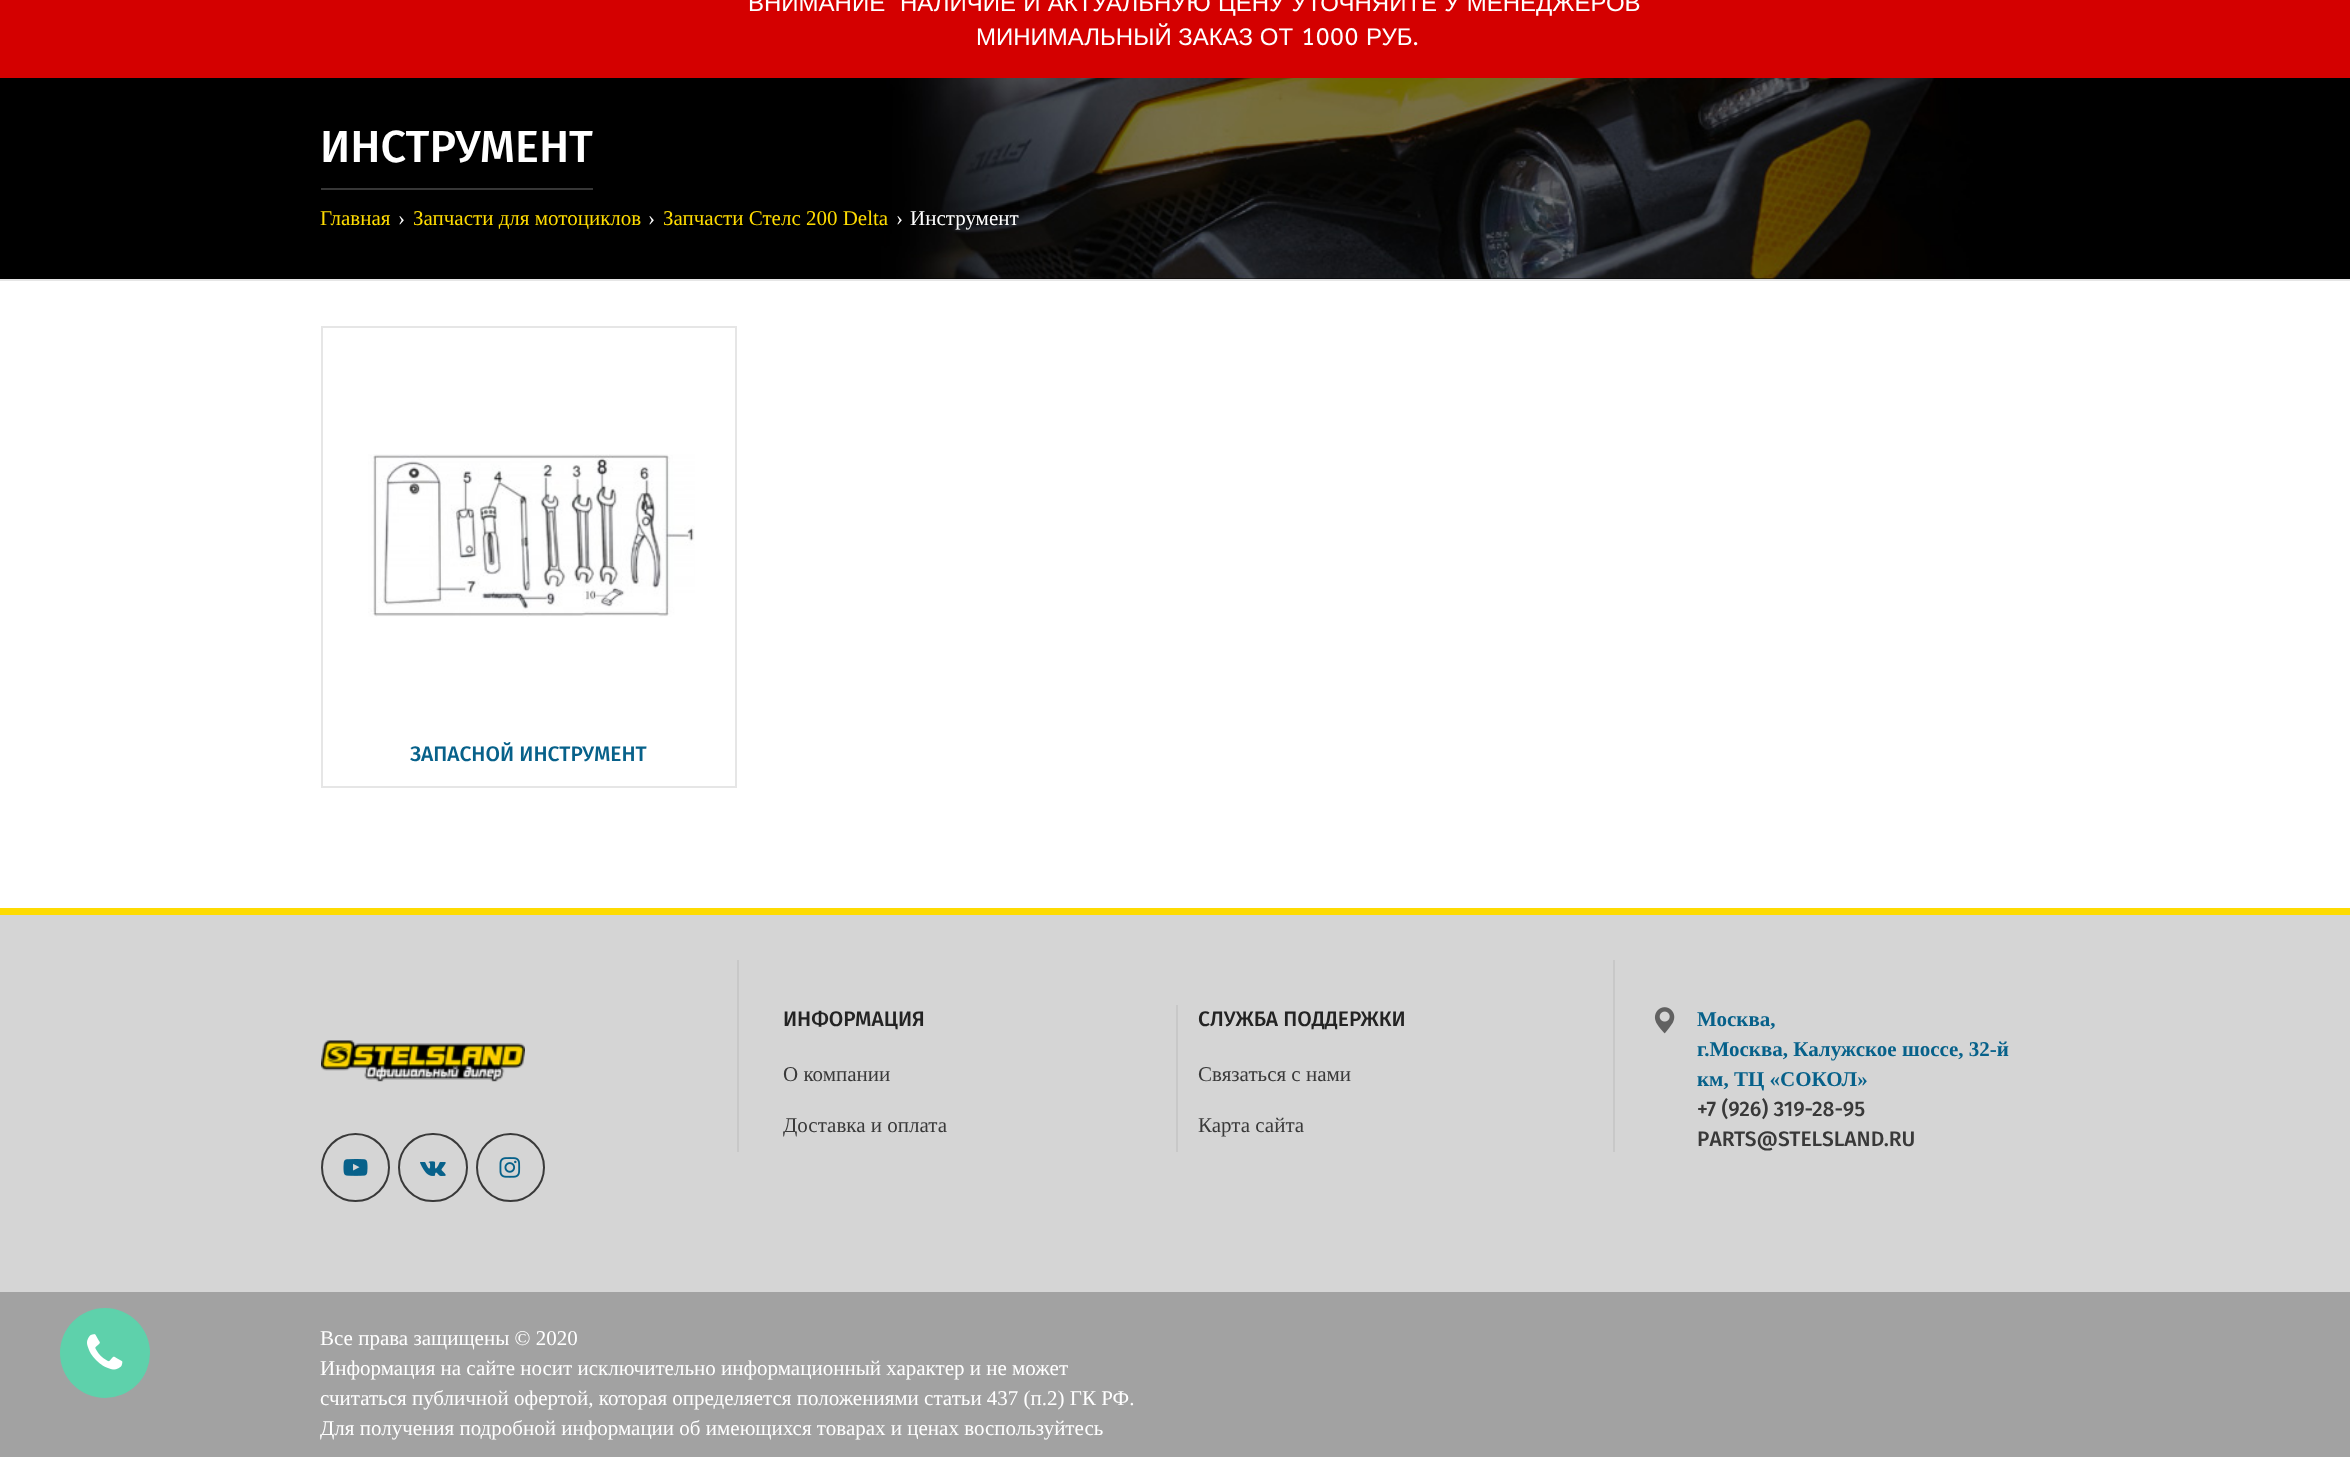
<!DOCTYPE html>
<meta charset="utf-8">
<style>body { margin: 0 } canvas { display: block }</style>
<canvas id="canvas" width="2350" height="1457"></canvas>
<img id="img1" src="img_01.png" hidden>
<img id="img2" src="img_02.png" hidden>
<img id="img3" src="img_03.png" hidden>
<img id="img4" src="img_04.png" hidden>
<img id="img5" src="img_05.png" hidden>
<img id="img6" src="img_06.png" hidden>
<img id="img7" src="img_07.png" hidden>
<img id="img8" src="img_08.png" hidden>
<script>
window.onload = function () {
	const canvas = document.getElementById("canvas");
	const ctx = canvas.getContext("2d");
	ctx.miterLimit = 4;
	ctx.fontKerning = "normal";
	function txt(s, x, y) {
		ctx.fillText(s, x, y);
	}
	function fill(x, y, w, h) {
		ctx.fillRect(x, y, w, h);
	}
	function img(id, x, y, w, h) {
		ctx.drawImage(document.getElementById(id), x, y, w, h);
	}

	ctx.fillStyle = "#FFFFFF";
	fill(0, 0, 2350, 1457);
	ctx.fillStyle = "#A2A2A2";
	fill(0, 1292, 2350, 165);
	ctx.fillStyle = "#5ED1AB";
	ctx.beginPath();
	ctx.arc(105, 1353, 45, 0, Math.PI * 2);
	ctx.fill();
	img("img1", 87, 1334, 36, 36);
	ctx.fillStyle = "#D40000";
	fill(0, 0, 2350, 78);
	img("img2", 0, 78, 2350, 201);
	ctx.fillStyle = "#E6E6E6";
	fill(0, 279, 2350, 2);
	ctx.fillStyle = "#373737";
	fill(321, 188, 272, 2);
	ctx.strokeStyle = "#E6E6E6";
	ctx.lineWidth = 2;
	ctx.strokeRect(322, 327, 414, 460);
	img("img3", 368, 454, 327, 163);
	ctx.fillStyle = "#D5D5D5";
	fill(0, 915, 2350, 377);
	ctx.fillStyle = "#FEDB01";
	fill(0, 908, 2350, 7);
	img("img4", 321, 1040, 204, 42);
	ctx.beginPath();
	ctx.arc(355.5, 1167.5, 33.5, 0, Math.PI * 2);
	ctx.strokeStyle = "#393939";
	ctx.stroke();
	img("img5", 343, 1159, 25, 17);
	ctx.beginPath();
	ctx.roundRect(399, 1134, 68, 67, 33.5);
	ctx.stroke();
	img("img6", 420, 1161, 26, 15);
	ctx.beginPath();
	ctx.arc(510.5, 1167.5, 33.5, 0, Math.PI * 2);
	ctx.stroke();
	img("img7", 499, 1157, 22, 21);
	ctx.fillStyle = "#C8C8C8";
	fill(1613, 960, 2, 192);
	fill(737, 960, 2, 192);
	fill(1176, 1005, 2, 147);
	img("img8", 1654, 1007, 21, 27);
	ctx.font = "24px Liberation Sans";
	ctx.fillStyle = "#FFFFFF";
	txt("ВНИМАНИЕ", 748, 11);
	ctx.wordSpacing = "0.5px";
	txt("НАЛИЧИЕ И АКТУАЛЬНУЮ ЦЕНУ УТОЧНЯЙТЕ У МЕНЕДЖЕРОВ", 900, 11);
	ctx.wordSpacing = "0px";
	txt("МИНИМАЛЬНЫЙ ЗАКАЗ ОТ", 976, 45);
	ctx.font = "24px ABeeZee";
	txt("1000", 1301, 45);
	ctx.font = "24px Liberation Sans";
	txt("РУБ", 1366, 45);
	ctx.font = "24px ABeeZee";
	txt(".", 1412, 45);
	ctx.font = "500 45px Fira Sans";
	txt("ИНСТРУМЕНТ", 320, 162);
	ctx.font = "21px Liberation Serif";
	ctx.fillStyle = "#FEDB01";
	txt("Главная", 320, 225);
	ctx.fillStyle = "#FFFFFF";
	txt("›", 398, 225);
	ctx.fillStyle = "#FEDB01";
	txt("Запчасти для мотоциклов", 413, 225);
	ctx.fillStyle = "#FFFFFF";
	txt("›", 648, 225);
	ctx.fillStyle = "#FEDB01";
	txt("Запчасти Стелс 200 Delta", 663, 225);
	ctx.fillStyle = "#FFFFFF";
	txt("›", 896, 225);
	txt("Инструмент", 910, 225);
	ctx.font = "500 21px Fira Sans";
	ctx.fillStyle = "#07618A";
	txt("ЗАПАСНОЙ ИНСТРУМЕНТ", 410, 761);
	ctx.fillStyle = "#232323";
	txt("ИНФОРМАЦИЯ", 783, 1026);
	ctx.font = "21px Liberation Serif";
	ctx.fillStyle = "#393939";
	txt("О компании", 783, 1081);
	txt("Доставка и оплата", 783, 1132);
	ctx.font = "500 21px Fira Sans";
	ctx.fillStyle = "#232323";
	txt("СЛУЖБА ПОДДЕРЖКИ", 1198, 1026);
	ctx.font = "21px Liberation Serif";
	ctx.fillStyle = "#393939";
	txt("Связаться с нами", 1198, 1081);
	txt("Карта сайта", 1198, 1132);
	ctx.font = "bold 21px Liberation Serif";
	ctx.fillStyle = "#07618A";
	txt("Москва,", 1697, 1026);
	txt("г.Москва, Калужское шоссе, 32-й", 1697, 1056);
	txt("км, ТЦ «СОКОЛ»", 1697, 1086);
	ctx.font = "500 21px Fira Sans";
	ctx.fillStyle = "#393939";
	txt("+7 (926) 319-28-95", 1697, 1116);
	txt("PARTS@STELSLAND.RU", 1697, 1146);
	ctx.font = "21px Liberation Serif";
	ctx.fillStyle = "#FFFFFF";
	txt("Все права защищены © 2020", 320, 1345);
	txt("Информация на сайте носит исключительно информационный характер и не может", 320, 1375);
	txt("считаться публичной офертой, которая определяется положениями статьи 437 (п.2) ГК РФ.", 320, 1405);
	txt("Для получения подробной информации об имеющихся товарах и ценах воспользуйтесь", 320, 1435);
};
</script>
